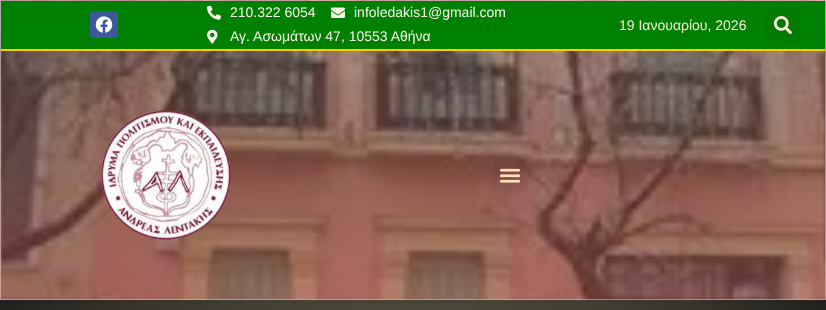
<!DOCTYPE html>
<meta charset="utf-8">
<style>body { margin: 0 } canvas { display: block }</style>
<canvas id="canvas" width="826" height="310"></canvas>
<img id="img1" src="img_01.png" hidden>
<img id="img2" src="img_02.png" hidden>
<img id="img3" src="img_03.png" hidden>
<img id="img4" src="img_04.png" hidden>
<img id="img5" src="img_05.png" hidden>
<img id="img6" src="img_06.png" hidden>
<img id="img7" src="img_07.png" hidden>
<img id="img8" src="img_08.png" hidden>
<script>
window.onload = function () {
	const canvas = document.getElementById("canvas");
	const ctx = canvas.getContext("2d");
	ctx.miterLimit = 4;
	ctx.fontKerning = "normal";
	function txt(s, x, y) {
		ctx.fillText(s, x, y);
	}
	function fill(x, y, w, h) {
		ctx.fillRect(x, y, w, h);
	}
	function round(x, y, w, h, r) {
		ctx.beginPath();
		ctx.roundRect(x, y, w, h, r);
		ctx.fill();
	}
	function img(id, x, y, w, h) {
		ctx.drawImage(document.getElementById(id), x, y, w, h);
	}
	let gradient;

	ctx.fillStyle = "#FFFFFF";
	fill(0, 0, 826, 310);
	img("img1", 0, 0, 826, 300);
	ctx.strokeStyle = "rgba(248, 244, 242, 0.48)";
	ctx.strokeRect(0.5, 0.5, 825, 299);
	gradient = ctx.createLinearGradient(413, -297, 413, 1);
	gradient.addColorStop(0, "rgba(99, 91, 91, 0.5)");
	gradient.addColorStop(1, "rgba(170, 90, 90, 0.5)");
	ctx.fillStyle = gradient;
	fill(0, 0, 826, 1);
	gradient = ctx.createLinearGradient(413, 1, 413, 299);
	gradient.addColorStop(0, "rgba(99, 91, 91, 0.5)");
	gradient.addColorStop(1, "rgba(170, 90, 90, 0.5)");
	ctx.fillStyle = gradient;
	fill(0, 1, 826, 298);
	gradient = ctx.createLinearGradient(413, 299, 413, 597);
	gradient.addColorStop(0, "rgba(99, 91, 91, 0.5)");
	gradient.addColorStop(1, "rgba(170, 90, 90, 0.5)");
	ctx.fillStyle = gradient;
	fill(0, 299, 826, 1);
	ctx.strokeStyle = "rgba(248, 244, 242, 0.24)";
	ctx.strokeRect(0.5, 0.5, 825, 299);
	ctx.fillStyle = "#008000";
	fill(1, 1, 824, 48);
	ctx.fillStyle = "#3B5998";
	round(90, 11, 28, 27, 3);
	img("img2", 95, 16, 18, 17);
	img("img3", 207, 5, 14, 15);
	img("img4", 331, 7, 14, 11);
	img("img5", 207, 29, 11, 15);
	ctx.fillStyle = "#007A00";
	round(766, 8, 33, 33, 3);
	img("img6", 773, 16, 19, 19);
	ctx.fillStyle = "#FFCB00";
	fill(1, 49, 824, 2);
	img("img7", 101, 110, 130, 130);
	ctx.fillStyle = "rgba(0, 0, 0, 0.05)";
	fill(494, 158, 33, 33);
	img("img8", 499, 168, 22, 15);
	gradient = ctx.createRadialGradient(413, 930.27, 0, 413, 930.27, 584);
	gradient.addColorStop(0.4, "#706B52");
	gradient.addColorStop(1, "#201F1C");
	ctx.fillStyle = gradient;
	ctx.beginPath();
	ctx.rect(0, 300, 826, 10);
	ctx.save();
	ctx.clip();
	ctx.scale(1, 339 / 584);
	ctx.fillRect(0, 0, 826, 535);
	ctx.restore();
	ctx.font = "14px Liberation Sans";
	ctx.fillStyle = "#F7F3E8";
	txt("210.322 6054", 230, 17);
	txt("infoledakis1@gmail.com", 354, 17);
	txt("Αγ. Ασωμάτων 47, 10553 Αθήνα", 230, 41);
	ctx.fillStyle = "#F6EDDA";
	txt("19 Ιανουαρίου, 2026", 619, 30);
};
</script>
